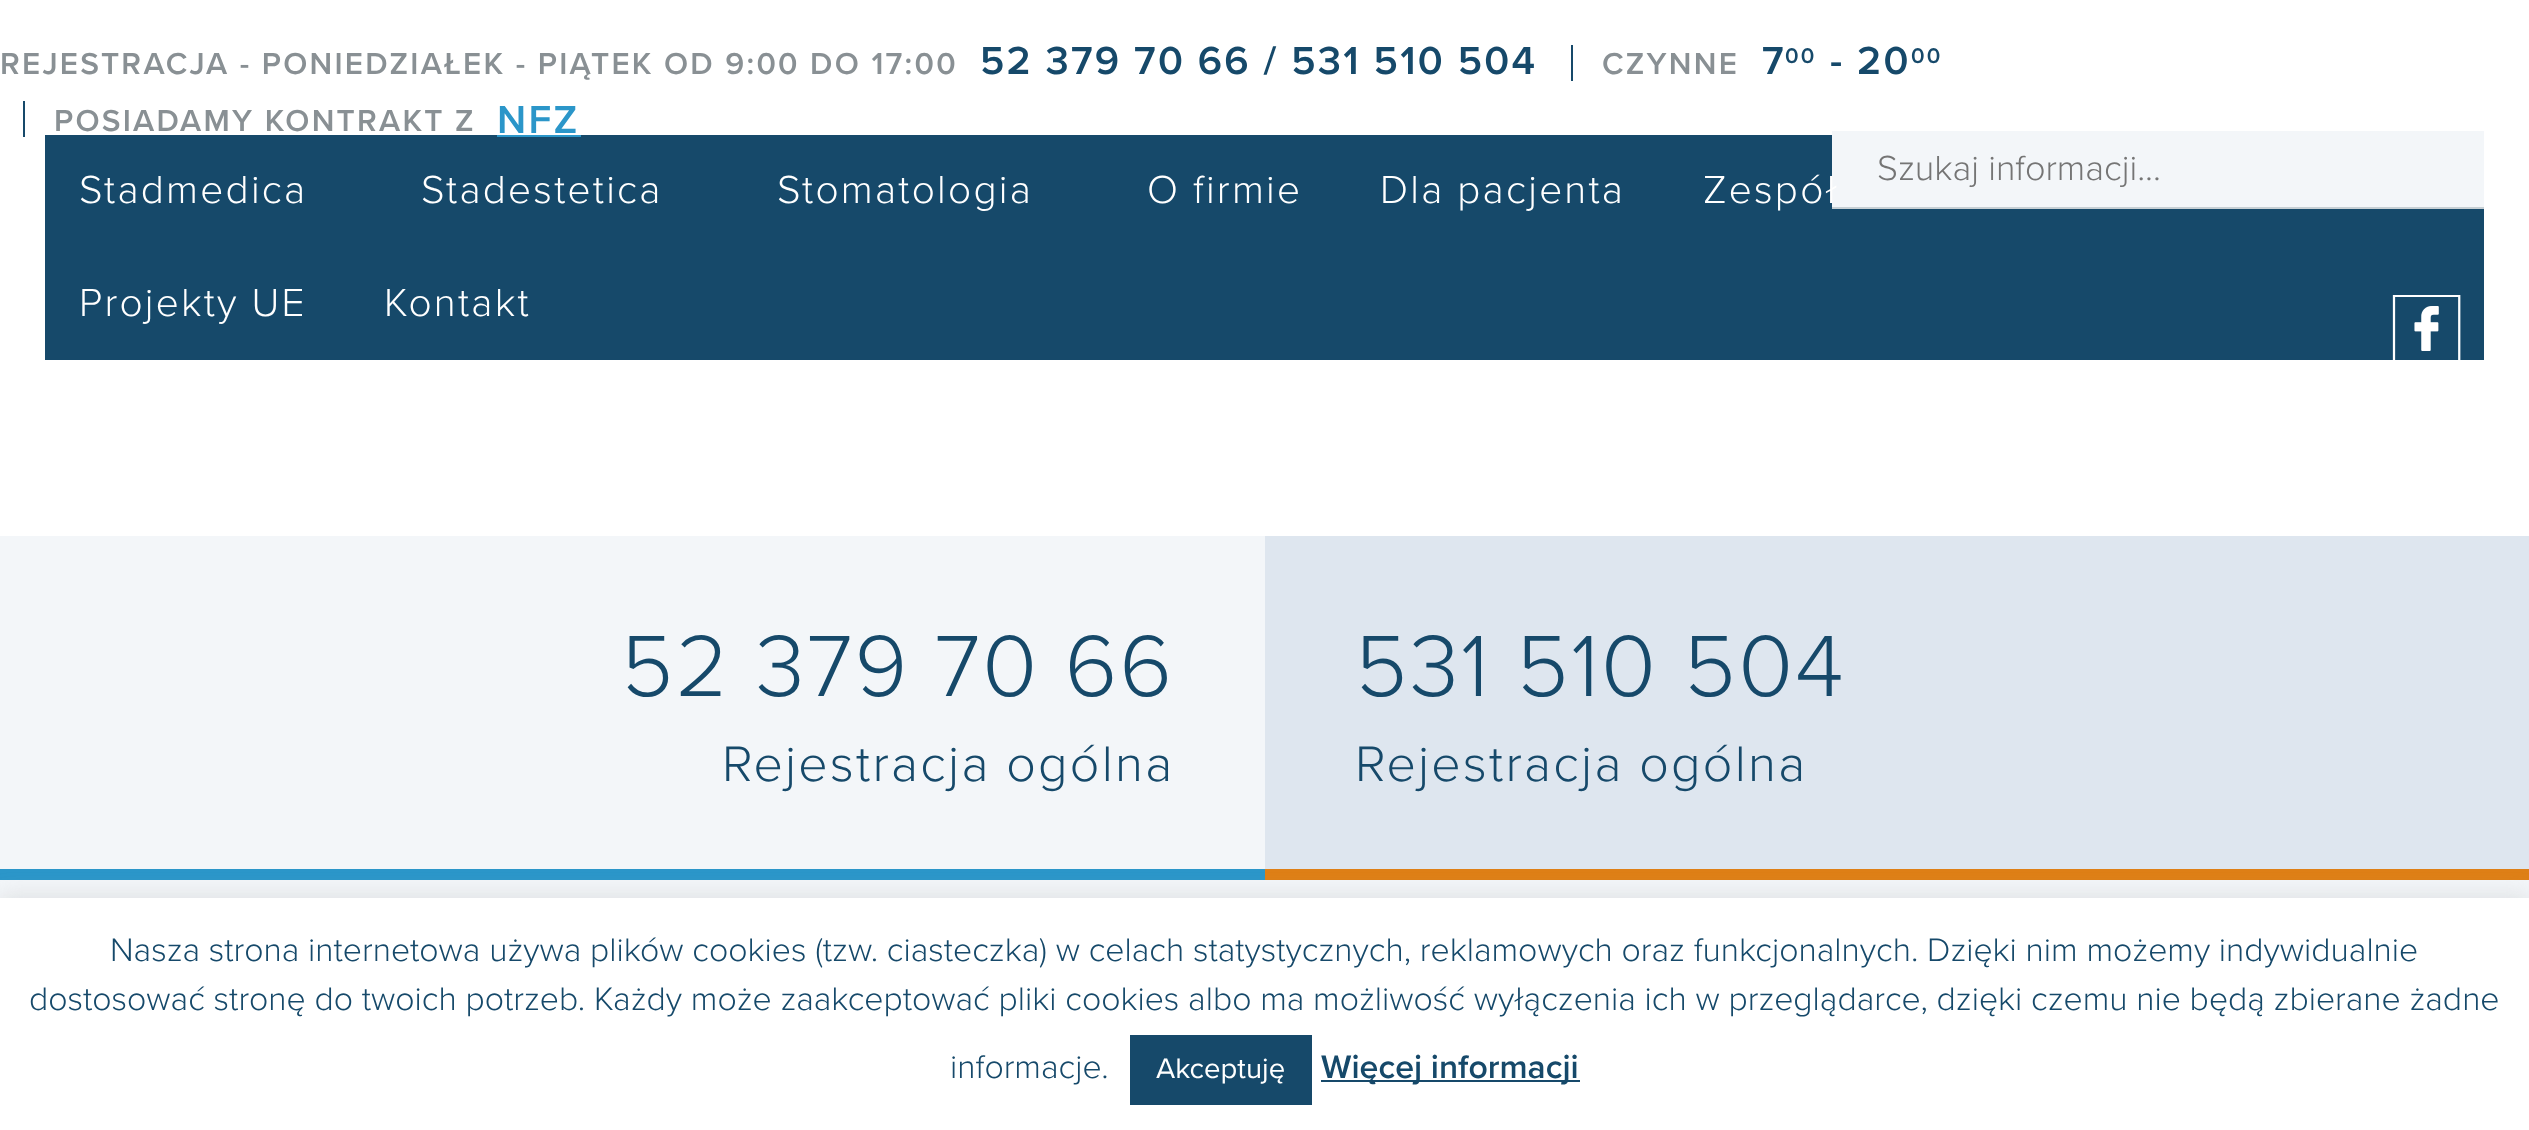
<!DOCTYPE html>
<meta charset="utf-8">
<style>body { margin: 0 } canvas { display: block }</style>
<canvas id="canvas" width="2529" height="1130"></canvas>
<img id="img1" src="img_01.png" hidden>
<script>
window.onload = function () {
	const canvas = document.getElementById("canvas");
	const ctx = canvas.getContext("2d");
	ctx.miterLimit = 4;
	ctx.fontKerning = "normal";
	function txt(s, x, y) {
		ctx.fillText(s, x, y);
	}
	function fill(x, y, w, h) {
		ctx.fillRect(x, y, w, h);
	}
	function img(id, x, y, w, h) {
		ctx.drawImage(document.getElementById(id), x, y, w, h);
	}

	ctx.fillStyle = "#FFFFFF";
	fill(0, 0, 2529, 1130);
	ctx.fillStyle = "#16496A";
	fill(1571, 45, 2, 36);
	fill(23, 101, 2, 36);
	fill(45, 135, 2439, 225);
	ctx.fillStyle = "#2B96C9";
	fill(497, 135, 84, 2);
	ctx.fillStyle = "#F3F6F9";
	fill(1832, 131, 652, 76);
	ctx.fillStyle = "#C6CFD4";
	fill(1832, 207, 652, 2);
	img("img1", 2392, 295, 69, 65);
	ctx.fillStyle = "#F3F6F9";
	fill(0, 536, 1265, 333);
	ctx.fillStyle = "#2B96C9";
	fill(0, 869, 1265, 11);
	ctx.fillStyle = "#DEE6EF";
	fill(1265, 536, 1264, 333);
	ctx.fillStyle = "#DE7F16";
	fill(1265, 869, 1264, 11);
	ctx.fillStyle = "#F3F6F9";
	fill(0, 880, 2529, 18);
	ctx.fillStyle = "rgba(172, 171, 171, 0.3)";
	ctx.filter = "blur(11px)";
	ctx.beginPath();
	ctx.rect(0, 896, 2529, 234);
	ctx.fill();
	ctx.filter = "none";
	ctx.fillStyle = "#FFFFFF";
	fill(0, 898, 2529, 232);
	ctx.fillStyle = "#16496A";
	fill(1130, 1035, 182, 70);
	fill(1321, 1080, 259, 2);
	ctx.letterSpacing = "2.25px";
	ctx.font = "600 31.5px Proxima Nova";
	ctx.fillStyle = "#899094";
	txt("REJESTRACJA - PONIEDZIAŁEK - PIĄTEK OD 9:00 DO 17:00", 0, 74);
	ctx.font = "600 40.5px Proxima Nova";
	ctx.fillStyle = "#16496A";
	txt("52 379 70 66 / 531 510 504", 980, 74);
	ctx.font = "600 31.5px Proxima Nova";
	ctx.fillStyle = "#899094";
	txt("CZYNNE", 1602, 74);
	ctx.font = "600 40.5px Proxima Nova";
	ctx.fillStyle = "#16496A";
	txt("7", 1762, 74);
	ctx.font = "600 22px Proxima Nova";
	txt("00", 1785, 63);
	ctx.font = "600 40.5px Proxima Nova";
	txt("- 20", 1830, 74);
	ctx.font = "600 22px Proxima Nova";
	txt("00", 1911, 63);
	ctx.font = "600 31.5px Proxima Nova";
	ctx.fillStyle = "#899094";
	txt("POSIADAMY KONTRAKT Z", 54, 131);
	ctx.font = "600 40.5px Proxima Nova";
	ctx.fillStyle = "#2B96C9";
	txt("NFZ", 497, 133);
	ctx.font = "300 40.5px Proxima Nova";
	ctx.fillStyle = "#FFFFFF";
	txt("Stadmedica", 79, 203);
	txt("Stadestetica", 421, 203);
	txt("Stomatologia", 777, 203);
	txt("O firmie", 1147, 203);
	txt("Dla pacjenta", 1380, 203);
	txt("Zespół", 1703, 203);
	txt("Projekty UE", 79, 316);
	txt("Kontakt", 384, 316);
	ctx.letterSpacing = "0px";
	ctx.font = "300 36px Proxima Nova";
	ctx.fillStyle = "#757575";
	txt("Szukaj informacji...", 1877, 180);
	ctx.letterSpacing = "2.25px";
	ctx.font = "300 90px Proxima Nova";
	ctx.fillStyle = "#16496A";
	txt("52 379 70 66", 621, 696);
	ctx.font = "300 51.75px Proxima Nova";
	txt("Rejestracja ogólna", 722, 781);
	ctx.font = "300 90px Proxima Nova";
	txt("531 510 504", 1355, 696);
	ctx.font = "300 51.75px Proxima Nova";
	txt("Rejestracja ogólna", 1355, 781);
	ctx.letterSpacing = "0px";
	ctx.font = "300 33.75px Proxima Nova";
	txt("Nasza strona internetowa używa plików cookies (tzw. ciasteczka) w celach statystycznych, reklamowych oraz funkcjonalnych. Dzięki nim możemy indywidualnie", 110, 961);
	txt("dostosować stronę do twoich potrzeb. Każdy może zaakceptować pliki cookies albo ma możliwość wyłączenia ich w przeglądarce, dzięki czemu nie będą zbierane żadne", 29, 1010);
	txt("informacje.", 950, 1078);
	ctx.font = "29.25px Proxima Nova";
	ctx.fillStyle = "#FFFFFF";
	txt("Akceptuję", 1156, 1078);
	ctx.font = "600 33.75px Proxima Nova";
	ctx.fillStyle = "#16496A";
	txt("Więcej informacji", 1321, 1078);
};
</script>
